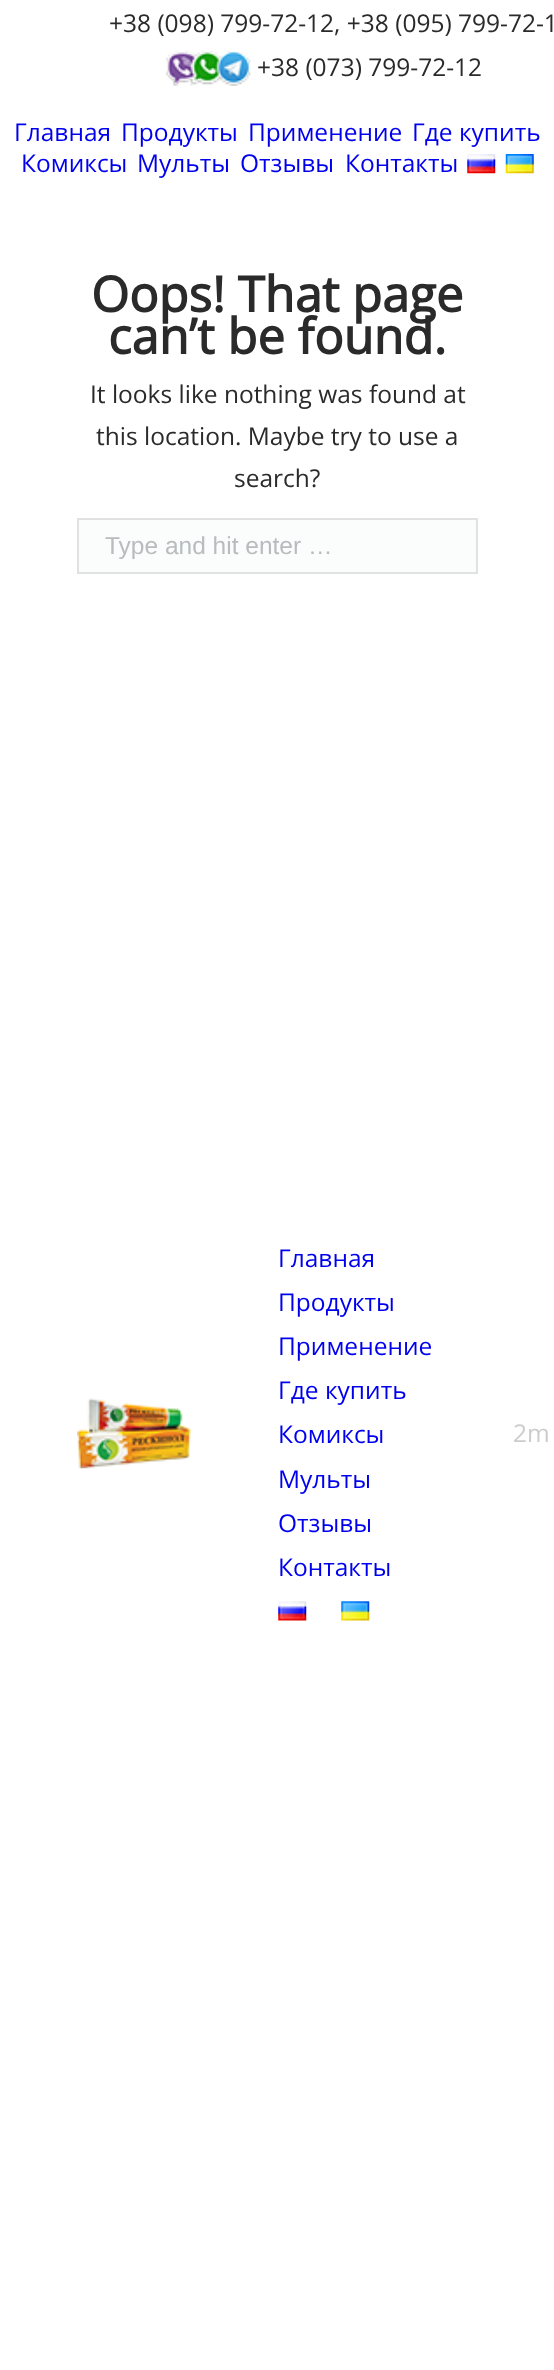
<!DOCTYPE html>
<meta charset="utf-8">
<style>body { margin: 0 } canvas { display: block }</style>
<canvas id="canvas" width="554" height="2370"></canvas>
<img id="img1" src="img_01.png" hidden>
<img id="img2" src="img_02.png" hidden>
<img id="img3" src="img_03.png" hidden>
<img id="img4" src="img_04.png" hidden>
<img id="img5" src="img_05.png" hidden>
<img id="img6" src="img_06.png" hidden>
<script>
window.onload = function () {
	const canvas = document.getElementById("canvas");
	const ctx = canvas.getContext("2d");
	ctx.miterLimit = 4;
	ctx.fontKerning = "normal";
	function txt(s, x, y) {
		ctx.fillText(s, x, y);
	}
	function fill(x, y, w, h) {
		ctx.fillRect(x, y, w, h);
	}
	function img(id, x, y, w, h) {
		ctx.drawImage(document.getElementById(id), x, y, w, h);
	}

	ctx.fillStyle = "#FFFFFF";
	fill(0, 0, 554, 2370);
	img("img1", 166, 50, 85, 36);
	img("img2", 467, 154, 29, 20);
	img("img3", 505, 154, 29, 20);
	ctx.fillStyle = "#FBFCFC";
	ctx.beginPath();
	ctx.rect(78, 519, 399, 54);
	ctx.fill();
	ctx.strokeStyle = "#E0E1E1";
	ctx.lineWidth = 2;
	ctx.stroke();
	img("img4", 77, 1398, 114, 71);
	img("img5", 278, 1601, 29, 20);
	img("img6", 341, 1601, 29, 20);
	ctx.font = "24.5px Open Sans";
	ctx.fillStyle = "#2A2A2A";
	txt("+38 (098) 799-72-12, +38 (095) 799-72-1", 109, 32);
	txt("+38 (073) 799-72-12", 257, 76);
	ctx.fillStyle = "#0000EE";
	txt("Главная", 14, 141);
	txt("Продукты", 121, 141);
	txt("Применение", 248, 141);
	txt("Где купить", 412, 141);
	txt("Комиксы", 21, 172);
	txt("Мульты", 137, 172);
	txt("Отзывы", 240, 172);
	txt("Контакты", 345, 172);
	ctx.font = "bold 49px Open Sans";
	ctx.fillStyle = "#2A2A2A";
	txt("Oops! That page", 91, 312);
	txt("can’t be found.", 108, 354);
	ctx.font = "24.5px Open Sans";
	txt("It looks like nothing was found at", 90, 403);
	txt("this location. Maybe try to use a", 96, 445);
	txt("search?", 234, 487);
	ctx.font = "24.5px Liberation Sans";
	ctx.fillStyle = "#B8BCBE";
	txt("Type and hit enter …", 105, 554);
	ctx.font = "24.5px Open Sans";
	ctx.fillStyle = "#0000EE";
	txt("Главная", 278, 1267);
	txt("Продукты", 278, 1311);
	txt("Применение", 278, 1355);
	txt("Где купить", 278, 1399);
	txt("Комиксы", 278, 1443);
	txt("Мульты", 278, 1488);
	txt("Отзывы", 278, 1532);
	txt("Контакты", 278, 1576);
	ctx.fillStyle = "#CCCCCC";
	txt("2m", 513, 1442);
};
</script>
